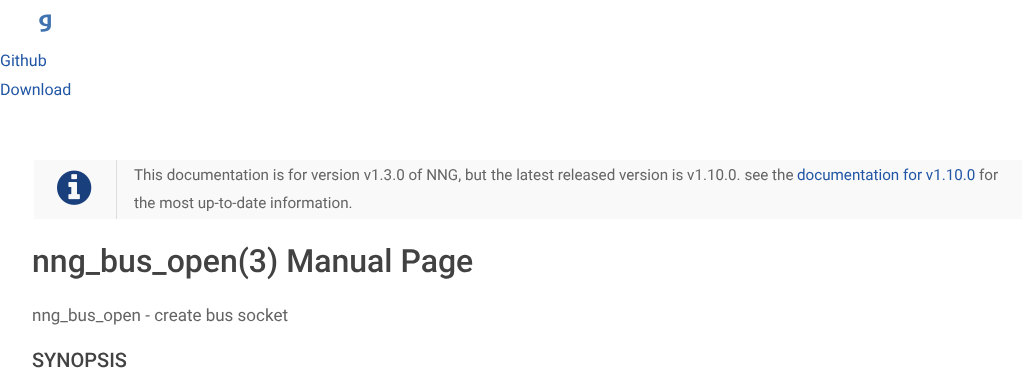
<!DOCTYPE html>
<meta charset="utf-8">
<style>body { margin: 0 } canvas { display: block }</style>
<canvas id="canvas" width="1024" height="379"></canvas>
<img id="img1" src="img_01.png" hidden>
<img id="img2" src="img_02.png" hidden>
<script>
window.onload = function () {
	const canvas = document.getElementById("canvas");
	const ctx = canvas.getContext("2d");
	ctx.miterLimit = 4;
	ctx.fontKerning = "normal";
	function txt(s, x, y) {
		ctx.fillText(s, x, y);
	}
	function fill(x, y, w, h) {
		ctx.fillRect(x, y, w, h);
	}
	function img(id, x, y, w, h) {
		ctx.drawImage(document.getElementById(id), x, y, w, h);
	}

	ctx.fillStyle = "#FFFFFF";
	fill(0, 0, 1024, 379);
	img("img1", 39, 14, 12, 18);
	ctx.fillStyle = "#F9F9F9";
	fill(34, 160, 988, 59);
	img("img2", 57, 170, 35, 35);
	ctx.fillStyle = "#DDDDDF";
	fill(116, 160, 1, 59);
	ctx.font = "16px Roboto";
	ctx.fillStyle = "#2156A5";
	txt("Github", 0, 66);
	txt("Download", 0, 95);
	ctx.font = "15.2px Roboto";
	ctx.fillStyle = "#646464";
	txt("This documentation is for version v1.3.0 of NNG, but", 134, 180);
	txt("the latest released version is v1.10.0. see the", 491, 180);
	ctx.fillStyle = "#2156A5";
	txt("documentation for v1.10.0", 797, 180);
	ctx.fillStyle = "#646464";
	txt("for", 979, 180);
	txt("the most up-to-date information.", 134, 208);
	ctx.font = "500 32px Roboto";
	ctx.fillStyle = "#424242";
	txt("nng_bus_open(3) Manual Page", 32, 272);
	ctx.font = "17px Roboto";
	ctx.fillStyle = "#646464";
	txt("nng_bus_open - create bus socket", 32, 321);
	ctx.font = "500 20px Roboto";
	ctx.fillStyle = "#424242";
	txt("SYNOPSIS", 32, 367);
};
</script>
